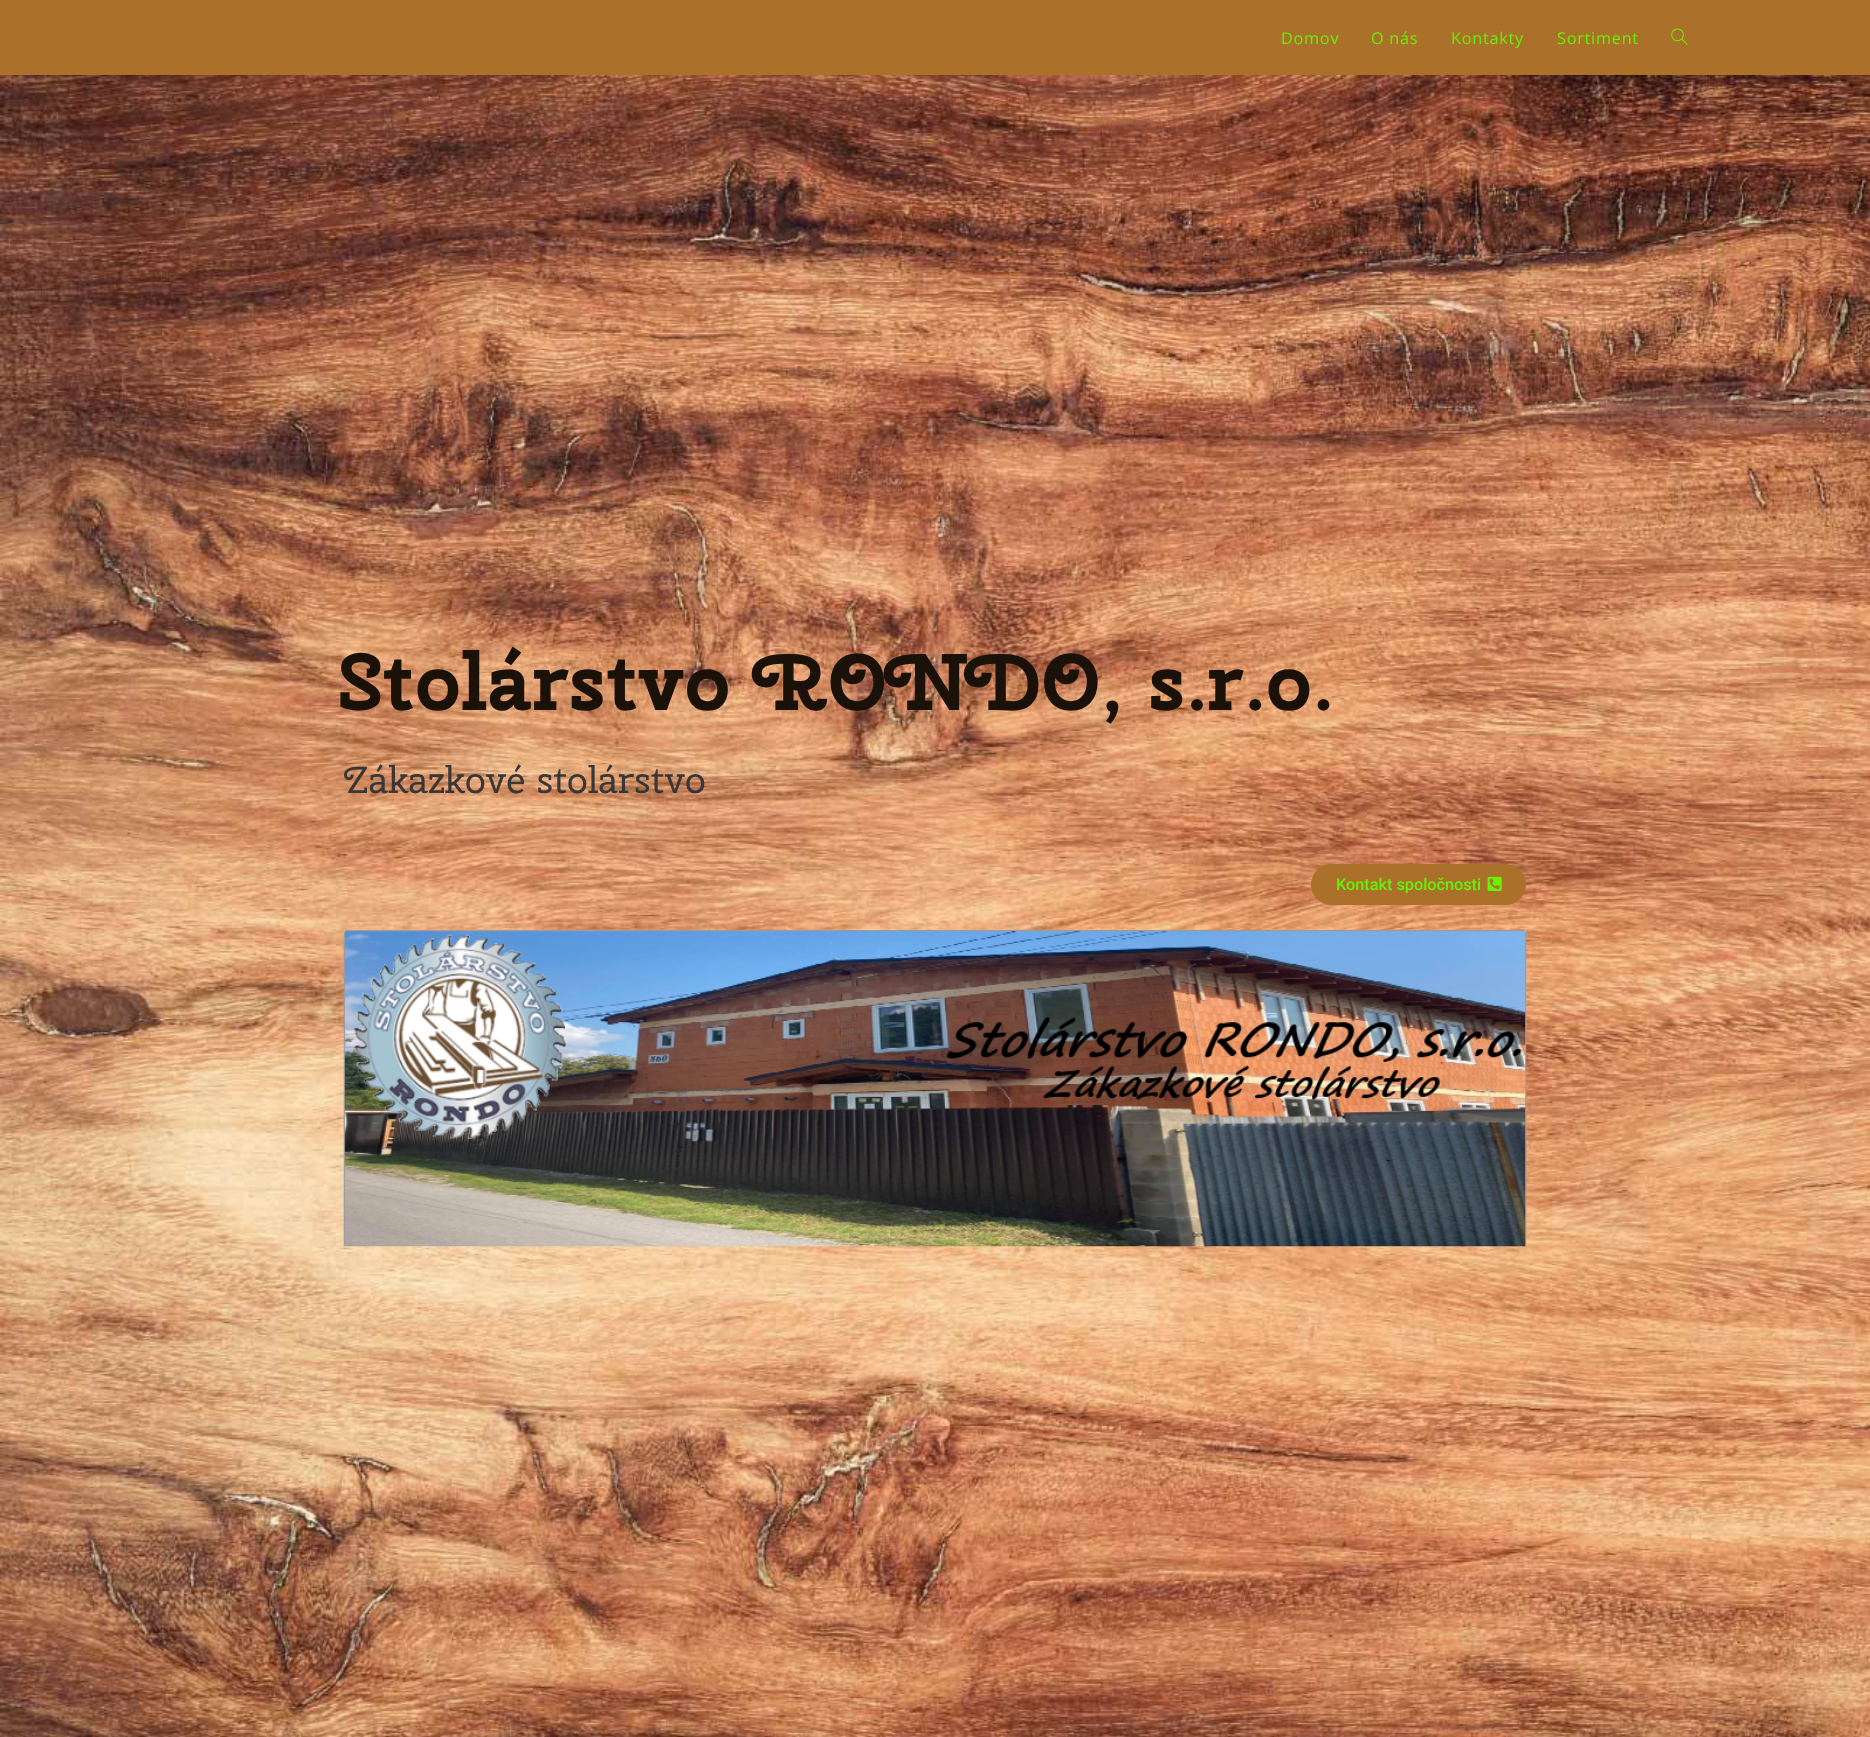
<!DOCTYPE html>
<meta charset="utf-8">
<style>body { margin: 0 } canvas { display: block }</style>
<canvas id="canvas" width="1870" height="1737"></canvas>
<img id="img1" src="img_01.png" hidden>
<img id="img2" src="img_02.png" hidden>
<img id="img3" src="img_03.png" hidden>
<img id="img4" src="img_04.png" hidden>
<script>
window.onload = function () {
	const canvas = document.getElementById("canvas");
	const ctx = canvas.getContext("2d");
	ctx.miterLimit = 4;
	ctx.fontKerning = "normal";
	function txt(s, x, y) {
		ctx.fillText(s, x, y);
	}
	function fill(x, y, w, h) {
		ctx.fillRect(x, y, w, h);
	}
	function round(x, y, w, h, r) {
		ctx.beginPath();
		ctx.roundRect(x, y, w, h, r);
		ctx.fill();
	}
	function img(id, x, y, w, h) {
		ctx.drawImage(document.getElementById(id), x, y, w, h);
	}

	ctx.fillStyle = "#FFFFFF";
	fill(0, 0, 1870, 1737);
	ctx.fillStyle = "#AB712A";
	fill(0, 0, 1870, 75);
	img("img1", 1671, 28, 17, 17);
	img("img2", 0, 75, 1870, 1662);
	round(1311, 864, 215, 41, 20.5);
	img("img3", 1487, 876, 15, 15);
	img("img4", 343, 930, 1184, 317);
	ctx.letterSpacing = "0.75px";
	ctx.font = "16.25px Open Sans";
	ctx.fillStyle = "#64F301";
	txt("Domov", 1281, 44);
	txt("O nás", 1371, 44);
	txt("Kontakty", 1451, 44);
	txt("Sortiment", 1557, 44);
	ctx.letterSpacing = "0px";
	ctx.font = "bold 80px Cherry Swash";
	ctx.fillStyle = "#1A1109";
	txt("Stolárstvo RONDO, s.r.o.", 344, 710);
	ctx.font = "37.5px Cherry Swash";
	ctx.fillStyle = "#383636";
	txt("Zákazkové stolárstvo", 344, 793);
	ctx.font = "500 16.25px Roboto";
	ctx.fillStyle = "#64F301";
	txt("Kontakt spoločnosti", 1336, 890);
};
</script>
